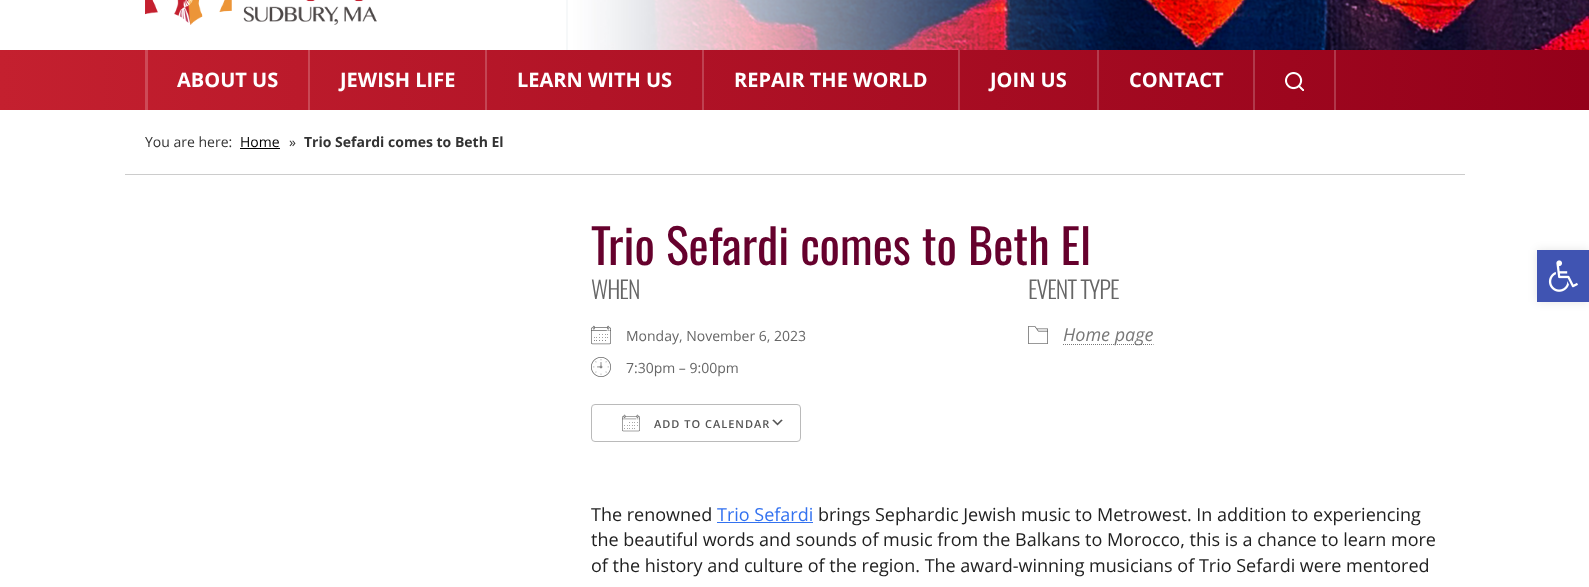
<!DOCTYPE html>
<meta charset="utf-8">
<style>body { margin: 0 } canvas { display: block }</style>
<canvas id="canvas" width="1589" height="587"></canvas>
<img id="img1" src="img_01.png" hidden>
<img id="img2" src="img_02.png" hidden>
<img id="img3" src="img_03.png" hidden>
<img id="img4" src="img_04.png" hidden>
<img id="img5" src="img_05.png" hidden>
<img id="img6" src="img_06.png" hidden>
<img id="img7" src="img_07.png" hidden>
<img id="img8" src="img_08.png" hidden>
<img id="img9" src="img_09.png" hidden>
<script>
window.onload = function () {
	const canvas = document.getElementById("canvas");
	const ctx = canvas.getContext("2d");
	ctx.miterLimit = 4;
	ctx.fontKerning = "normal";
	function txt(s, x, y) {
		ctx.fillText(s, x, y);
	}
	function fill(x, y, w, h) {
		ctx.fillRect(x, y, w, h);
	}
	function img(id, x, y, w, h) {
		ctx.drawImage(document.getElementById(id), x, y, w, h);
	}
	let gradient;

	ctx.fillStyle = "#FFFFFF";
	fill(0, 0, 1589, 587);
	img("img1", 566, 0, 1023, 50);
	img("img2", 145, 0, 232, 25);
	gradient = ctx.createLinearGradient(0, 80, 1589, 80);
	gradient.addColorStop(0, "#C4202F");
	gradient.addColorStop(1, "#94001A");
	ctx.fillStyle = gradient;
	fill(0, 50, 1589, 60);
	ctx.fillStyle = "#CD4A57";
	fill(145, 50, 3, 60);
	ctx.fillStyle = "#C94855";
	fill(308, 50, 2, 60);
	ctx.fillStyle = "#C44554";
	fill(485, 50, 2, 60);
	ctx.fillStyle = "#BF4151";
	fill(702, 50, 2, 60);
	ctx.fillStyle = "#B93D4E";
	fill(958, 50, 2, 60);
	ctx.fillStyle = "#B53B4D";
	fill(1097, 50, 2, 60);
	ctx.fillStyle = "#B1394B";
	fill(1253, 50, 2, 60);
	ctx.fillStyle = "#B0374A";
	fill(1334, 50, 2, 60);
	img("img3", 1285, 72, 19, 19);
	ctx.fillStyle = "#CCCCCC";
	fill(125, 174, 1340, 1);
	ctx.fillStyle = "#000000";
	fill(240, 148, 40, 1);
	img("img4", 591, 325, 20, 20);
	img("img5", 591, 357, 20, 20);
	img("img6", 772, 419, 11, 7);
	ctx.beginPath();
	ctx.roundRect(591.5, 404.5, 209, 37, 3.5);
	ctx.strokeStyle = "#BABABA";
	ctx.stroke();
	img("img7", 622, 414, 18, 18);
	img("img8", 1028, 326, 20, 18);
	ctx.beginPath();
	ctx.moveTo(1063, 344.5);
	ctx.lineTo(1153.5, 344.5);
	ctx.strokeStyle = "#787878";
	ctx.setLineDash([1, 1]);
	ctx.stroke();
	ctx.fillStyle = "#3372F0";
	fill(717, 522, 96, 1);
	ctx.fillStyle = "rgba(0, 0, 0, 0.1)";
	ctx.filter = "blur(5px)";
	ctx.beginPath();
	ctx.rect(1537, 250, 52, 52);
	ctx.fill();
	ctx.filter = "none";
	ctx.fillStyle = "#4054B2";
	fill(1537, 250, 52, 52);
	img("img9", 1548, 260, 30, 32);
	ctx.font = "bold 20px Open Sans";
	ctx.fillStyle = "#FFFFFF";
	txt("ABOUT US", 177, 87);
	txt("JEWISH LIFE", 340, 87);
	txt("LEARN WITH US", 517, 87);
	txt("REPAIR THE WORLD", 734, 87);
	txt("JOIN US", 990, 87);
	txt("CONTACT", 1129, 87);
	ctx.font = "14px Open Sans";
	ctx.fillStyle = "#333333";
	txt("You are here:", 145, 147);
	ctx.fillStyle = "#000000";
	txt("Home", 240, 147);
	ctx.fillStyle = "#333333";
	txt("»", 289, 147);
	ctx.font = "bold 14px Open Sans";
	txt("Trio Sefardi comes to Beth El", 304, 147);
	ctx.font = "48px Oswald";
	ctx.fillStyle = "#66012D";
	txt("Trio Sefardi comes to Beth El", 591, 265);
	ctx.letterSpacing = "-1px";
	ctx.font = "300 24px Oswald";
	ctx.fillStyle = "#666666";
	txt("WHEN", 591, 299);
	ctx.letterSpacing = "0px";
	ctx.font = "14px Open Sans";
	txt("Monday, November 6, 2023", 626, 341);
	txt("7:30pm – 9:00pm", 626, 373);
	ctx.letterSpacing = "1px";
	ctx.font = "600 11px Open Sans";
	ctx.fillStyle = "#545454";
	txt("ADD TO CALENDAR", 654, 428);
	ctx.letterSpacing = "-1px";
	ctx.font = "300 24px Oswald";
	ctx.fillStyle = "#666666";
	txt("EVENT TYPE", 1028, 299);
	ctx.letterSpacing = "0px";
	ctx.font = "italic 18px Open Sans";
	ctx.fillStyle = "#787878";
	txt("Home page", 1063, 341);
	ctx.font = "18px Open Sans";
	ctx.fillStyle = "#212121";
	txt("The renowned", 591, 521);
	ctx.fillStyle = "#3372F0";
	txt("Trio Sefardi", 717, 521);
	ctx.fillStyle = "#212121";
	txt("brings Sephardic Jewish music to Metrowest. In addition to experiencing", 818, 521);
	txt("the beautiful words and sounds of music from the Balkans to Morocco, this is a chance to learn more", 591, 546);
	txt("of the history and culture of the region. The award-winning musicians of Trio Sefardi were mentored", 591, 572);
};
</script>
